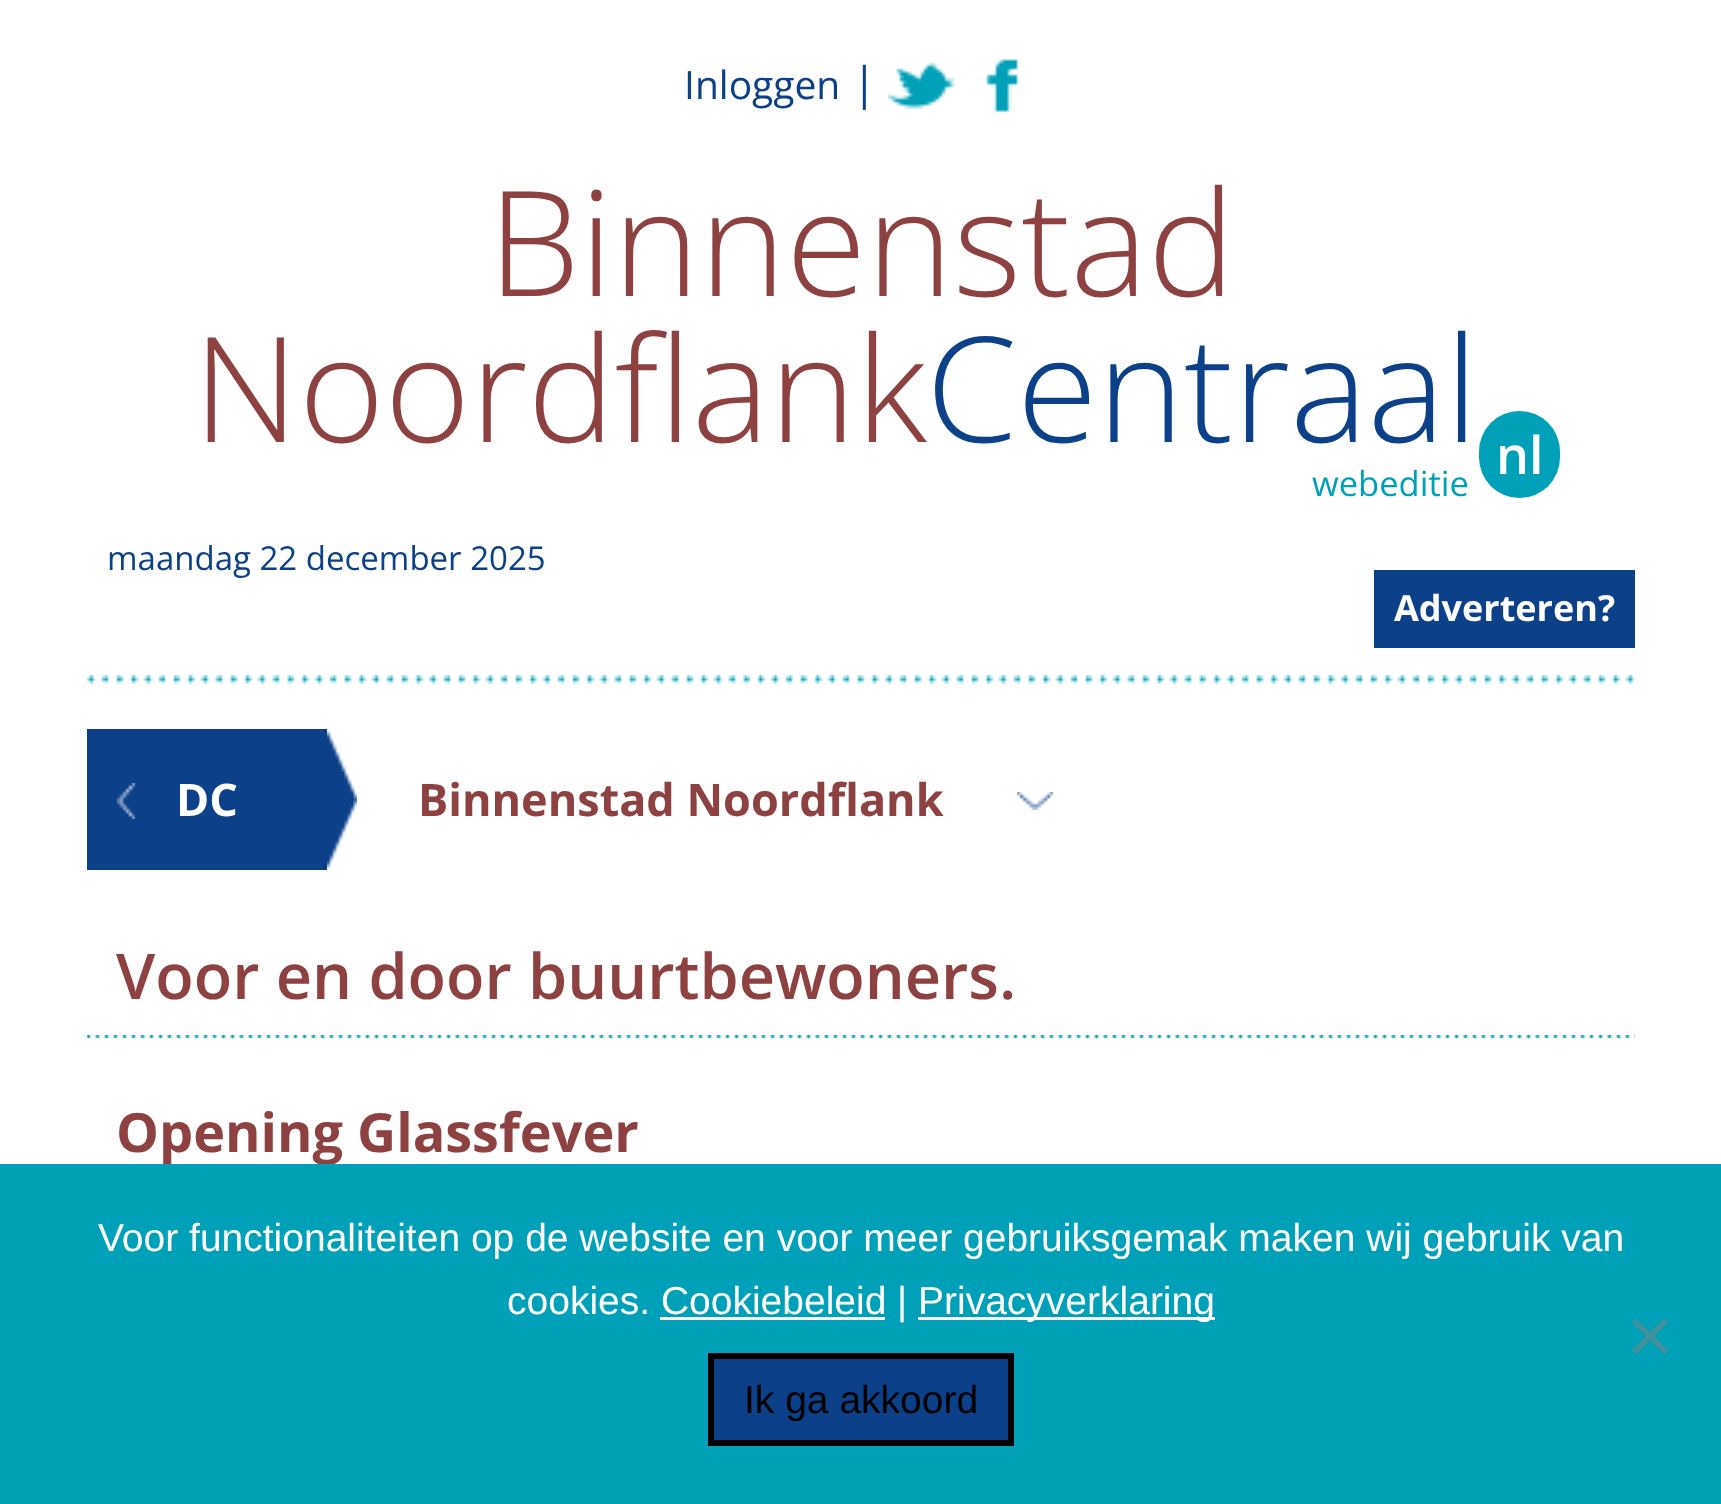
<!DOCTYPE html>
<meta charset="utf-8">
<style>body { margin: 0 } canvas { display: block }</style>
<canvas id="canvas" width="1721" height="1504"></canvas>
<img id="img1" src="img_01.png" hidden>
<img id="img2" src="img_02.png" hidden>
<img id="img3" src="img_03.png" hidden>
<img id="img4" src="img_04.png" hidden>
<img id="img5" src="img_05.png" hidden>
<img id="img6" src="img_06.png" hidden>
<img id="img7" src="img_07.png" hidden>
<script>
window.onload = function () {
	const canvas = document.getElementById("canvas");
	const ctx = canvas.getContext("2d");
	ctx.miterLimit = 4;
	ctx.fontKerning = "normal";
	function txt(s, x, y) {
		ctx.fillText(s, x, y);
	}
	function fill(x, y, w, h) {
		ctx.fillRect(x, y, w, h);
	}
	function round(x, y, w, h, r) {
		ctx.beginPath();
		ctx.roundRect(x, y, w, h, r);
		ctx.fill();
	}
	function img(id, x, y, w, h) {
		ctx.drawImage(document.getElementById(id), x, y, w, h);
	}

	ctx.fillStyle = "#FFFFFF";
	fill(0, 0, 1721, 1504);
	img("img1", 87, 675, 1548, 9);
	img("img2", 888, 62, 67, 47);
	img("img3", 986, 59, 32, 53);
	ctx.fillStyle = "#00A1B8";
	round(1479, 411, 81, 87, 40.5);
	ctx.fillStyle = "#0C4089";
	fill(1374, 570, 261, 78);
	fill(87, 729, 240, 141);
	img("img4", 117, 783, 18, 36);
	img("img5", 327, 729, 30, 141);
	img("img6", 1017, 792, 36, 18);
	img("img7", 87, 1035, 1548, 3);
	ctx.font = "39px Open Sans";
	txt("Inloggen", 684, 99);
	ctx.font = "45px Open Sans";
	txt("|", 852, 99);
	ctx.font = "300 146.5px Open Sans";
	ctx.fillStyle = "#8D4141";
	txt("Binnenstad", 488, 296);
	txt("Noordflank", 193, 442);
	ctx.fillStyle = "#0C4089";
	txt("Centraal", 926, 442);
	ctx.font = "600 52px Open Sans";
	ctx.fillStyle = "#FFFFFF";
	txt("nl", 1496, 474);
	ctx.font = "34.5px Open Sans";
	ctx.fillStyle = "#00A1B8";
	txt("webeditie", 1312, 496);
	ctx.font = "33px Open Sans";
	ctx.fillStyle = "#0C4089";
	txt("maandag 22 december 2025", 107, 570);
	ctx.font = "bold 36px Open Sans";
	ctx.fillStyle = "#FFFFFF";
	txt("Adverteren?", 1394, 621);
	ctx.font = "bold 45px Open Sans";
	txt("DC", 176, 816);
	ctx.fillStyle = "#8D4141";
	txt("Binnenstad Noordflank", 418, 816);
	ctx.font = "600 63px Open Sans";
	txt("Voor en door buurtbewoners.", 116, 999);
	ctx.font = "bold 54px Open Sans";
	txt("Opening Glassfever", 116, 1152);
	ctx.fillStyle = "#00A1B8";
	fill(0, 1164, 1721, 340);
	ctx.font = "39px Liberation Sans";
	ctx.fillStyle = "#FFFFFF";
	txt("Voor functionaliteiten op de website en voor meer gebruiksgemak maken wij gebruik van", 98, 1251);
	txt("cookies. Cookiebeleid", 507, 1314);
	txt("|", 897, 1314);
	fill(918, 1317, 297, 3);
	txt("Privacyverklaring", 918, 1314);
	fill(660, 1317, 225, 3);
	ctx.fillStyle = "#40919C";
	ctx.beginPath();
	ctx.moveTo(1664, 1318.5);
	ctx.lineTo(1668, 1322.5);
	ctx.lineTo(1636, 1354.5);
	ctx.lineTo(1632, 1350);
	ctx.closePath();
	ctx.fill();
	ctx.beginPath();
	ctx.moveTo(1632, 1322.5);
	ctx.lineTo(1636, 1318.5);
	ctx.lineTo(1668, 1350);
	ctx.lineTo(1664, 1354.5);
	ctx.closePath();
	ctx.fill();
	ctx.fillStyle = "#0C4089";
	ctx.beginPath();
	ctx.rect(711, 1356, 300, 87);
	ctx.fill();
	ctx.strokeStyle = "#000000";
	ctx.lineWidth = 6;
	ctx.stroke();
	ctx.fillStyle = "#000000";
	txt("Ik ga akkoord", 744, 1413);
};
</script>
